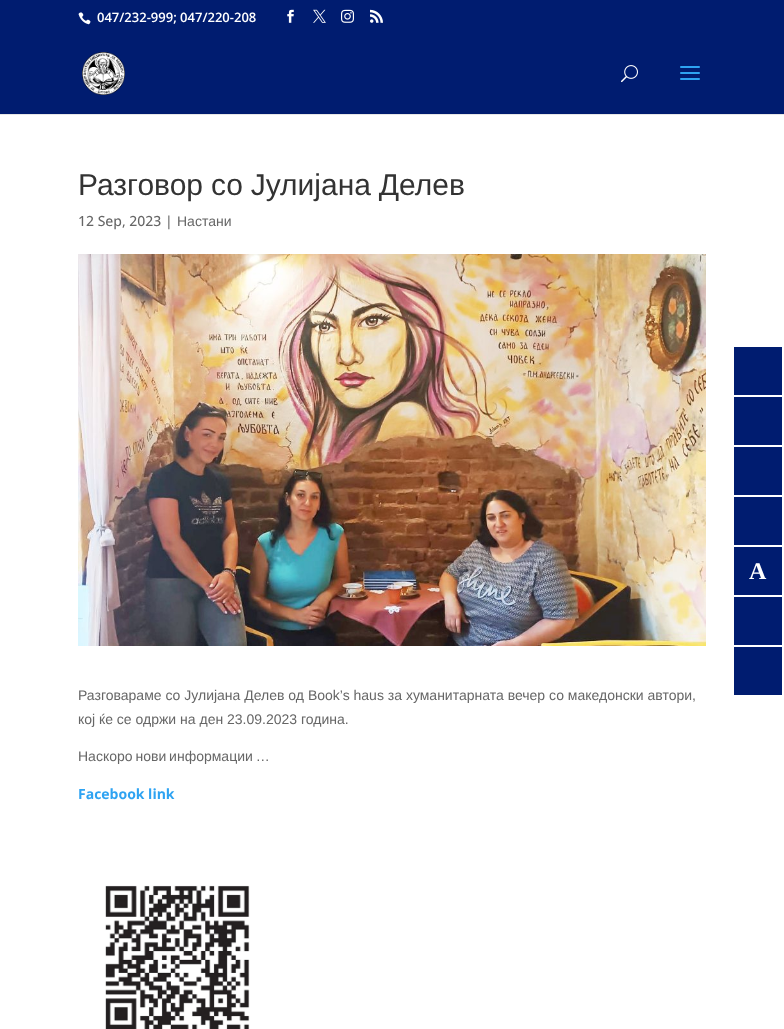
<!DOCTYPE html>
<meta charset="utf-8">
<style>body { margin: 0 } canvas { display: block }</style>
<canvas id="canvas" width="784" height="1029"></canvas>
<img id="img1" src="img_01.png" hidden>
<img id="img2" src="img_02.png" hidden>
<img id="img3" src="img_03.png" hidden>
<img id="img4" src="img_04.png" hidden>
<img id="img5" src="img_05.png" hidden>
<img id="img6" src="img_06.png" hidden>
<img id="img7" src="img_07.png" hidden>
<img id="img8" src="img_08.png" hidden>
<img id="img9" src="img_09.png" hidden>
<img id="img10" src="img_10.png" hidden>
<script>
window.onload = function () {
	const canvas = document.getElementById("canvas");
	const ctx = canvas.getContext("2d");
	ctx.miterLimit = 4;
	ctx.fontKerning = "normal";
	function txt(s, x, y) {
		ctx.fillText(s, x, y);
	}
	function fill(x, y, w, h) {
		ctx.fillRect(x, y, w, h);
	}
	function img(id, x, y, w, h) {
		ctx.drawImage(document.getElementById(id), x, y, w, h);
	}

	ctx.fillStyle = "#FFFFFF";
	fill(0, 0, 784, 1029);
	ctx.fillStyle = "#E6E6E6";
	fill(0, 114, 784, 1);
	ctx.fillStyle = "#001C70";
	fill(0, 0, 784, 114);
	img("img1", 82, 52, 43, 43);
	img("img2", 621, 65, 17, 18);
	img("img3", 680, 66, 20, 14);
	img("img4", 78, 12, 13, 13);
	img("img5", 287, 9, 7, 14);
	img("img6", 313, 9, 13, 14);
	img("img7", 341, 9, 13, 14);
	img("img8", 370, 9, 13, 14);
	img("img9", 78, 254, 628, 392);
	img("img10", 105, 885, 145, 144);
	fill(734, 347, 48, 48);
	fill(734, 397, 48, 48);
	fill(734, 447, 48, 48);
	fill(734, 497, 48, 48);
	fill(734, 547, 48, 48);
	fill(734, 597, 48, 48);
	fill(734, 647, 48, 48);
	ctx.font = "600 13px Open Sans";
	ctx.fillStyle = "#FFFFFF";
	txt("047/232-999; 047/220-208", 97, 22);
	ctx.wordSpacing = "-0.5px";
	ctx.font = "30px Liberation Sans";
	ctx.fillStyle = "#333333";
	txt("Разговор со Јулијана Делев", 78, 195);
	ctx.wordSpacing = "0px";
	ctx.font = "500 14px Open Sans";
	ctx.fillStyle = "#666666";
	txt("12 Sep, 2023 |", 78, 226);
	ctx.font = "14px Liberation Sans";
	txt("Настани", 177, 226);
	txt("Разговараме со Јулијана Делев од Book’s haus за хуманитарната вечер со македонски автори,", 78, 700);
	txt("кој ќе се одржи на ден 23.09.2023 година.", 78, 724);
	ctx.wordSpacing = "-1px";
	txt("Наскоро нови информации …", 78, 761);
	ctx.wordSpacing = "0px";
	ctx.font = "bold 14px Open Sans";
	ctx.fillStyle = "#2EA3F2";
	txt("Facebook link", 78, 799);
	ctx.font = "bold 24px Liberation Serif";
	ctx.fillStyle = "#FFFFFF";
	txt("A", 749, 579);
};
</script>
